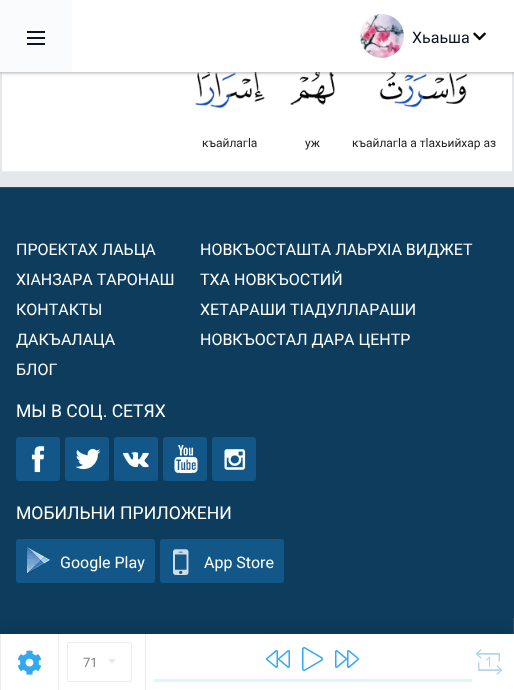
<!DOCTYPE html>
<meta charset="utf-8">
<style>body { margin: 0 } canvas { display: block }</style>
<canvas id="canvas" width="514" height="690"></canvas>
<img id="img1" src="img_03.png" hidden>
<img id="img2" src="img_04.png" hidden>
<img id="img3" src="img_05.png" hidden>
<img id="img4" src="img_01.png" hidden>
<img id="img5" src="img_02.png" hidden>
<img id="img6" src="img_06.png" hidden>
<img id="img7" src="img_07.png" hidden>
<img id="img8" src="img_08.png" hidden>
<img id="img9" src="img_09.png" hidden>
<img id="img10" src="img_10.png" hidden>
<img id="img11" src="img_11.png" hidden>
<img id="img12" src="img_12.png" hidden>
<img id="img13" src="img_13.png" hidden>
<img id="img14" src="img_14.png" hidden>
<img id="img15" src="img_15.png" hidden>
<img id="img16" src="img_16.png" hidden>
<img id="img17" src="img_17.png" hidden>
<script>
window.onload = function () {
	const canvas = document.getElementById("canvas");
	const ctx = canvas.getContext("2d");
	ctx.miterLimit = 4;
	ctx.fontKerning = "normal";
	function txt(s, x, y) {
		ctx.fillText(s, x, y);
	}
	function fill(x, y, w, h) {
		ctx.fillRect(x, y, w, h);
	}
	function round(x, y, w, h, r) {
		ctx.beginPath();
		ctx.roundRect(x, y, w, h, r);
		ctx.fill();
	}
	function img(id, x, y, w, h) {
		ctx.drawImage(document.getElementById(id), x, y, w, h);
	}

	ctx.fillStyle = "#E5E8EB";
	fill(0, 0, 514, 690);
	ctx.fillStyle = "#FFFFFF";
	fill(2, 72, 510, 99);
	img("img1", 195, 72, 70, 36);
	img("img2", 290, 72, 45, 33);
	img("img3", 379, 72, 89, 36);
	ctx.fillStyle = "rgba(0, 0, 0, 0.2)";
	ctx.filter = "blur(1px)";
	ctx.beginPath();
	ctx.rect(0, 1, 514, 72);
	ctx.fill();
	ctx.filter = "none";
	ctx.fillStyle = "rgba(170, 170, 170, 0.5)";
	ctx.filter = "blur(2px)";
	ctx.beginPath();
	ctx.rect(0, 1, 514, 72);
	ctx.fill();
	ctx.filter = "none";
	ctx.fillStyle = "#FFFFFF";
	fill(72, 0, 442, 72);
	ctx.fillStyle = "#FAFBFC";
	fill(0, 0, 72, 72);
	ctx.fillStyle = "#0D1322";
	fill(27, 31, 18, 2);
	fill(27, 37, 18, 2);
	fill(27, 43, 18, 2);
	img("img4", 360, 14, 44, 44);
	img("img5", 473, 32, 13, 9);
	ctx.fillStyle = "#EEEEEE";
	fill(2, 171, 510, 1);
	ctx.fillStyle = "#0E3C5C";
	fill(0, 188, 514, 430);
	fill(0, 618, 513, 16);
	ctx.fillStyle = "#27506D";
	fill(513, 618, 1, 16);
	ctx.fillStyle = "rgba(0, 0, 0, 0.15)";
	ctx.filter = "blur(7.5px)";
	ctx.beginPath();
	ctx.rect(-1, 633, 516, 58);
	ctx.fill();
	ctx.filter = "none";
	ctx.fillStyle = "#FFFFFF";
	fill(1, 634, 513, 56);
	ctx.fillStyle = "#ECECEC";
	fill(58, 634, 1, 56);
	fill(0, 634, 1, 56);
	img("img6", 17, 650, 25, 25);
	ctx.beginPath();
	ctx.roundRect(67.5, 642.5, 64, 39, 1.5);
	ctx.strokeStyle = "#ECECEC";
	ctx.stroke();
	ctx.beginPath();
	ctx.moveTo(108, 659);
	ctx.lineTo(116, 659);
	ctx.lineTo(112, 664);
	ctx.closePath();
	ctx.fill();
	fill(145, 634, 1, 56);
	img("img7", 266, 650, 24, 18);
	img("img8", 302, 647, 21, 24);
	img("img9", 335, 650, 24, 18);
	ctx.fillStyle = "#E0F5FF";
	fill(154, 679, 318, 3);
	img("img10", 476, 649, 26, 26);
	ctx.fillStyle = "#27506D";
	fill(0, 187, 514, 1);
	ctx.fillStyle = "#125788";
	round(16, 437, 44, 44, 3);
	img("img11", 31, 446, 14, 27);
	round(65, 437, 44, 44, 3);
	img("img12", 76, 448, 25, 22);
	round(114, 437, 44, 44, 3);
	img("img13", 123, 452, 26, 16);
	round(163, 437, 44, 44, 3);
	img("img14", 174, 444, 24, 30);
	round(212, 437, 44, 44, 3);
	img("img15", 224, 449, 22, 21);
	round(16, 539, 139, 44, 3);
	img("img16", 27, 547, 23, 27);
	round(160, 539, 124, 44, 3);
	img("img17", 173, 549, 16, 26);
	ctx.font = "16px Roboto";
	ctx.fillStyle = "#0D1322";
	txt("Хьаьша", 412, 43);
	ctx.font = "12px Roboto";
	ctx.fillStyle = "#202020";
	txt("къайлагlа", 202, 147);
	txt("уж", 305, 147);
	txt("къайлагlа а тlахьийхар аз", 352, 147);
	ctx.font = "13px Roboto";
	ctx.fillStyle = "#828282";
	txt("71", 83, 667);
	ctx.font = "16px Roboto";
	ctx.fillStyle = "#FFFFFF";
	txt("ПРОЕКТАХ ЛАЬЦА", 16, 255);
	txt("ХIАНЗАРА ТАРОНАШ", 16, 285);
	txt("КОНТАКТЫ", 16, 315);
	txt("ДАКЪАЛАЦА", 16, 345);
	txt("БЛОГ", 16, 375);
	txt("НОВКЪОСТАШТА ЛАЬРХIА ВИДЖЕТ", 200, 255);
	txt("ТХА НОВКЪОСТИЙ", 200, 285);
	txt("ХЕТАРАШИ ТIАДУЛЛАРАШИ", 200, 315);
	txt("НОВКЪОСТАЛ ДАРА ЦЕНТР", 200, 345);
	ctx.font = "17.6px Roboto";
	txt("МЫ В СОЦ. СЕТЯХ", 16, 417);
	txt("МОБИЛЬНИ ПРИЛОЖЕНИ", 16, 519);
	ctx.font = "16px Roboto";
	txt("Google Play", 60, 568);
	txt("App Store", 204, 568);
};
</script>
